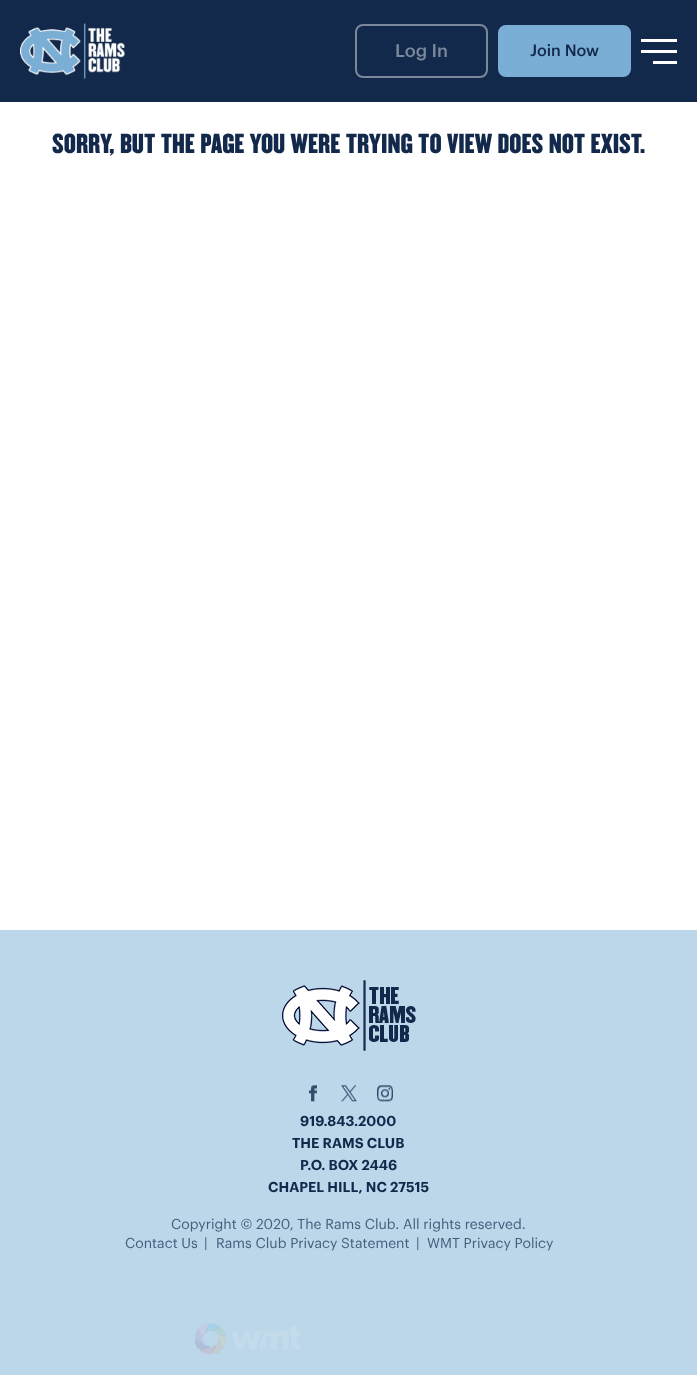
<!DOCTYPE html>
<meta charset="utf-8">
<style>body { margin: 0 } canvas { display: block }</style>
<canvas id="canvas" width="697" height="1375"></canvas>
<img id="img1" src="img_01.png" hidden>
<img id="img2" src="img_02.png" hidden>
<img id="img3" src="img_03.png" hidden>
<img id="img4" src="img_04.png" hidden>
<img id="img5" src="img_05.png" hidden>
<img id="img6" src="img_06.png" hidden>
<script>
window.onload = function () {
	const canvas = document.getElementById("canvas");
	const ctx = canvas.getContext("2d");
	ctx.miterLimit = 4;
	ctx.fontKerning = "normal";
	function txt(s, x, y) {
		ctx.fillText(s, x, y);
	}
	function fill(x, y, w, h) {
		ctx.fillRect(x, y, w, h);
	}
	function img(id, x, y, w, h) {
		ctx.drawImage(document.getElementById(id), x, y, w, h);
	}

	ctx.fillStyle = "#FFFFFF";
	fill(0, 0, 697, 1375);
	ctx.fillStyle = "#13294B";
	fill(0, 0, 697, 102);
	img("img1", 20, 23, 106, 56);
	ctx.beginPath();
	ctx.roundRect(356, 25, 131, 52, 7);
	ctx.strokeStyle = "#7B879A";
	ctx.lineWidth = 2;
	ctx.stroke();
	ctx.fillStyle = "#7AAED5";
	ctx.beginPath();
	ctx.roundRect(499, 26, 131, 50, 7);
	ctx.fill();
	ctx.strokeStyle = "#7AAED5";
	ctx.stroke();
	ctx.fillStyle = "#FFFFFF";
	fill(641, 39, 36, 3);
	fill(641, 50, 36, 3);
	fill(653, 61, 24, 3);
	ctx.fillStyle = "#BCD6EA";
	fill(0, 930, 697, 445);
	img("img2", 282, 980, 134, 71);
	img("img3", 309, 1085, 8, 17);
	img("img4", 341, 1085, 16, 17);
	img("img5", 377, 1085, 16, 17);
	img("img6", 195, 1323, 106, 31);
	ctx.font = "500 18px Graphik";
	ctx.fillStyle = "#7B879A";
	txt("Log In", 395, 57);
	ctx.font = "500 16px Graphik";
	ctx.fillStyle = "#13294B";
	txt("Join Now", 530, 56);
	ctx.font = "300 24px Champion";
	txt("SORRY, BUT THE PAGE YOU WERE TRYING TO VIEW DOES NOT EXIST.", 52, 153);
	ctx.font = "600 14px Graphik";
	txt("919.843.2000", 300, 1126);
	txt("THE RAMS CLUB", 292, 1148);
	txt("P.O. BOX 2446", 300, 1170);
	txt("CHAPEL HILL, NC 27515", 268, 1192);
	ctx.font = "14px Graphik";
	ctx.fillStyle = "#465D7B";
	txt("Copyright © 2020, The Rams Club. All rights reserved.", 171, 1229);
	txt("Contact Us", 125, 1248);
	txt("|", 204, 1248);
	txt("Rams Club Privacy Statement", 216, 1248);
	txt("|", 416, 1248);
	txt("WMT Privacy Policy", 427, 1248);
};
</script>
